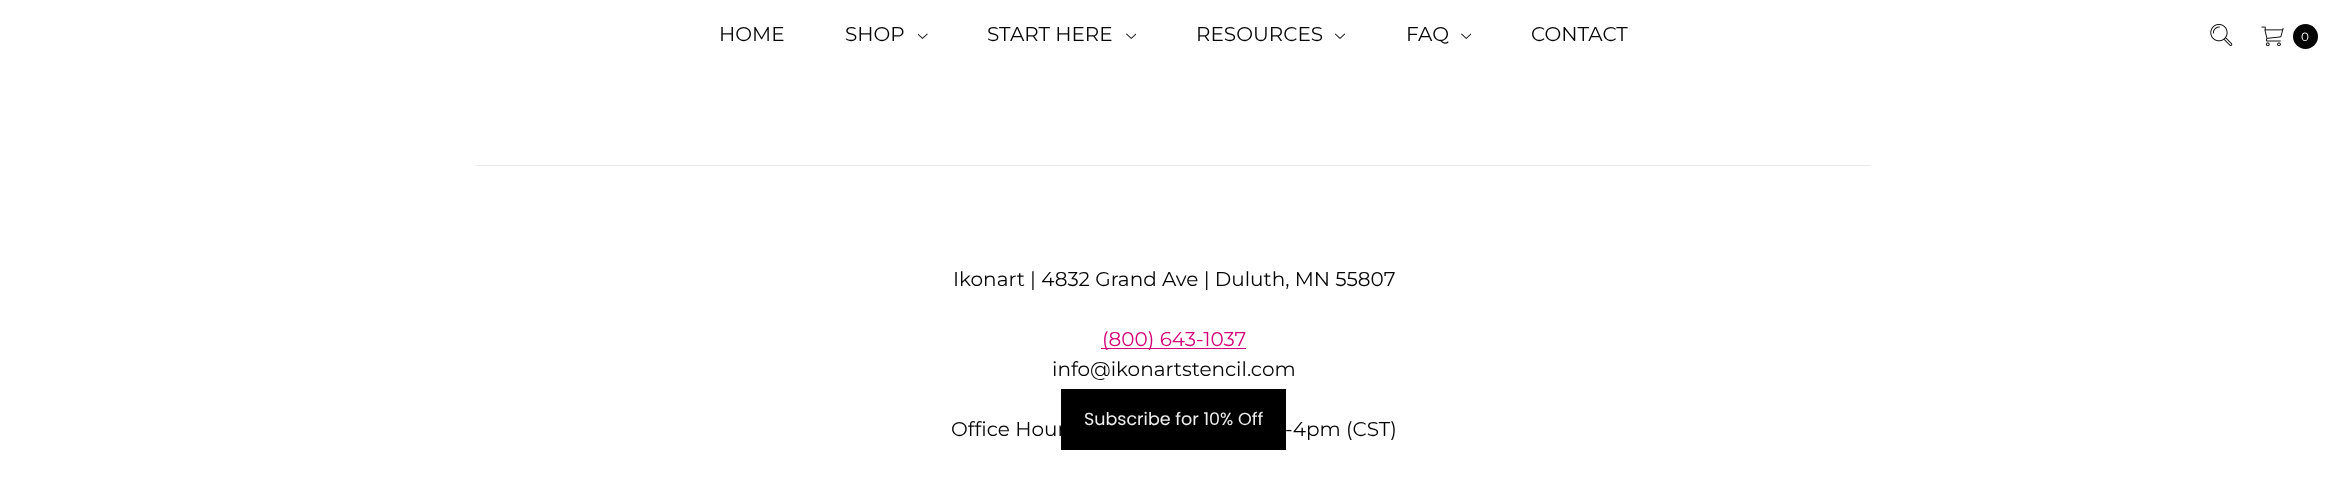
<!DOCTYPE html>
<meta charset="utf-8">
<style>body { margin: 0 } canvas { display: block }</style>
<canvas id="canvas" width="2347" height="490"></canvas>
<img id="img1" src="img_01.png" hidden>
<img id="img2" src="img_02.png" hidden>
<img id="img3" src="img_03.png" hidden>
<img id="img4" src="img_04.png" hidden>
<img id="img5" src="img_05.png" hidden>
<script>
window.onload = function () {
	const canvas = document.getElementById("canvas");
	const ctx = canvas.getContext("2d");
	ctx.miterLimit = 4;
	ctx.fontKerning = "normal";
	function txt(s, x, y) {
		ctx.fillText(s, x, y);
	}
	function fill(x, y, w, h) {
		ctx.fillRect(x, y, w, h);
	}
	function img(id, x, y, w, h) {
		ctx.drawImage(document.getElementById(id), x, y, w, h);
	}

	ctx.fillStyle = "#FFFFFF";
	fill(0, 0, 2347, 490);
	img("img1", 918, 33, 10, 6);
	img("img2", 1126, 33, 10, 6);
	img("img3", 1335, 33, 10, 6);
	img("img2", 1461, 33, 10, 6);
	img("img4", 2210, 24, 23, 22);
	img("img5", 2261, 26, 23, 20);
	ctx.fillStyle = "#050505";
	ctx.beginPath();
	ctx.arc(2305.5, 36.5, 12.5, 0, Math.PI * 2);
	ctx.fill();
	ctx.fillStyle = "#EBEBEB";
	fill(476, 165, 1395, 1);
	ctx.fillStyle = "#D20077";
	fill(1101, 348, 145, 1);
	ctx.font = "20px Montserrat";
	ctx.fillStyle = "#050505";
	txt("HOME", 719, 41);
	txt("SHOP", 845, 41);
	txt("START HERE", 987, 41);
	txt("RESOURCES", 1196, 41);
	txt("FAQ", 1406, 41);
	txt("CONTACT", 1531, 41);
	ctx.font = "12px Montserrat";
	ctx.fillStyle = "#FFFFFF";
	txt("0", 2301, 41);
	ctx.font = "20px Montserrat";
	ctx.fillStyle = "#050505";
	txt("Ikonart | 4832 Grand Ave | Duluth, MN 55807", 953, 286);
	ctx.fillStyle = "#D20077";
	txt("(800) 643-1037", 1102, 346);
	ctx.fillStyle = "#050505";
	txt("info@ikonartstencil.com", 1052, 376);
	txt("Office Hour", 951, 436);
	txt("-4pm (CST)", 1285, 436);
	ctx.fillStyle = "#000000";
	fill(1061, 389, 225, 61);
	ctx.font = "17.5px Poppins";
	ctx.fillStyle = "#EFEFEF";
	txt("Subscribe for 10% Off", 1084, 425);
};
</script>
